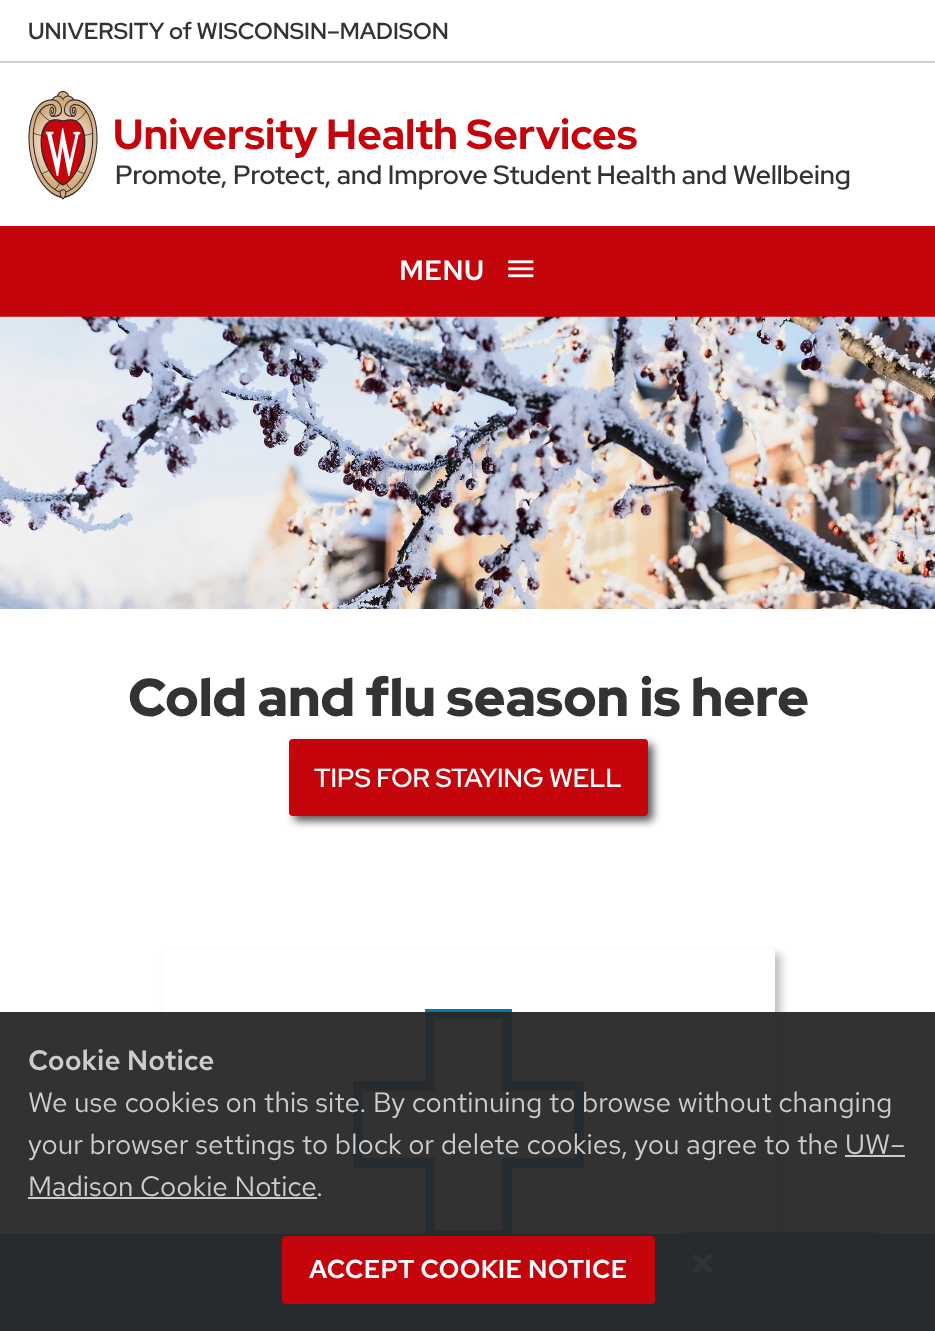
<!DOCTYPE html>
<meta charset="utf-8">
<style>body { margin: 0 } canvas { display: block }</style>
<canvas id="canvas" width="935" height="1331"></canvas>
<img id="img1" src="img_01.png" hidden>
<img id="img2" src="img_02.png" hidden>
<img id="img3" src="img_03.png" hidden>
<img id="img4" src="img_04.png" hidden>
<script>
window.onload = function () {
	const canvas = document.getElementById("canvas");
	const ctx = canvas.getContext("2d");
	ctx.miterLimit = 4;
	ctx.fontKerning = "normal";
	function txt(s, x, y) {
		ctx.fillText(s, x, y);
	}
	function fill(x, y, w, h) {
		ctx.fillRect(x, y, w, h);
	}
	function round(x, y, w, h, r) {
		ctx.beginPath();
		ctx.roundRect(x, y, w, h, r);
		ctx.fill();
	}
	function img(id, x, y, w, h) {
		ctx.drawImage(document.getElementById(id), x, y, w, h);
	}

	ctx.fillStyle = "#FFFFFF";
	fill(0, 0, 935, 1331);
	ctx.fillStyle = "#CFCFCF";
	fill(0, 61, 935, 2);
	img("img1", 28, 91, 70, 109);
	ctx.fillStyle = "#C5050C";
	fill(0, 226, 935, 91);
	img("img2", 508, 260, 26, 18);
	img("img3", 0, 316, 935, 293);
	ctx.fillStyle = "rgba(0, 0, 0, 0.65)";
	ctx.filter = "blur(4.5px)";
	ctx.beginPath();
	ctx.roundRect(294, 744, 359, 77, 4);
	ctx.fill();
	ctx.filter = "none";
	ctx.fillStyle = "#C5050C";
	round(289, 739, 359, 77, 4);
	ctx.save();
	ctx.beginPath();
	ctx.moveTo(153, 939);
	ctx.lineTo(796, 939);
	ctx.lineTo(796, 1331);
	ctx.lineTo(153, 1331);
	ctx.closePath();
	ctx.moveTo(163, 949);
	ctx.lineTo(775, 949);
	ctx.lineTo(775, 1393);
	ctx.lineTo(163, 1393);
	ctx.closePath();
	ctx.clip("evenodd");
	ctx.fillStyle = "rgba(0, 0, 0, 0.25)";
	ctx.filter = "blur(4.5px)";
	ctx.beginPath();
	ctx.rect(168, 954, 613, 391);
	ctx.fill();
	ctx.filter = "none";
	ctx.restore();
	ctx.beginPath();
	ctx.moveTo(579, 1086);
	ctx.lineTo(507, 1086);
	ctx.lineTo(507, 1014);
	ctx.lineTo(430, 1014);
	ctx.lineTo(430, 1086);
	ctx.lineTo(358, 1086);
	ctx.lineTo(358, 1163);
	ctx.lineTo(430, 1163);
	ctx.lineTo(430, 1235.5);
	ctx.lineTo(507, 1235.5);
	ctx.lineTo(507, 1163);
	ctx.lineTo(579, 1163);
	ctx.closePath();
	ctx.strokeStyle = "#0479A8";
	ctx.lineWidth = 9.8;
	ctx.stroke();
	ctx.fillStyle = "rgba(0, 0, 0, 0.12)";
	ctx.filter = "blur(5px)";
	ctx.beginPath();
	ctx.rect(0, 1237, 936, 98);
	ctx.fill();
	ctx.filter = "none";
	ctx.fillStyle = "rgba(0, 0, 0, 0.24)";
	ctx.filter = "blur(3.5px)";
	ctx.beginPath();
	ctx.rect(0, 1237, 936, 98);
	ctx.fill();
	ctx.filter = "none";
	ctx.fillStyle = "#0479A8";
	fill(0, 1234, 935, 97);
	round(658, 1232, 243, 65, 32.5);
	img("img4", 693, 1253, 20, 21);
	ctx.fillStyle = "rgba(40, 39, 40, 0.95)";
	fill(0, 1012, 935, 319);
	ctx.fillStyle = "#CCCCCC";
	fill(845, 1155, 60, 2);
	fill(28, 1197, 289, 2);
	ctx.fillStyle = "#C5050C";
	round(282, 1236, 373, 68, 4);
	ctx.font = "600 23.1px 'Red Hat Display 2'";
	ctx.fillStyle = "#333333";
	txt("UNIVERSITY of WISCONSIN–MADISON", 28, 39);
	ctx.font = "800 42px Red Hat Display";
	ctx.fillStyle = "#C5050C";
	txt("University Health Services", 113, 149);
	ctx.font = "600 26.6px Red Hat Display";
	ctx.fillStyle = "#333333";
	txt("Promote, Protect, and Improve Student Health and Wellbeing", 115, 184);
	ctx.font = "600 28px Red Hat Text";
	ctx.fillStyle = "#FFFFFF";
	txt("MENU", 399, 280);
	ctx.font = "900 53.25px Red Hat Display";
	ctx.fillStyle = "#333333";
	txt("Cold and flu season is here", 128, 716);
	ctx.font = "600 26.25px Red Hat Display";
	ctx.fillStyle = "#FFFFFF";
	txt("TIPS FOR STAYING WELL", 314, 787);
	ctx.font = "600 28px 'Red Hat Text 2'";
	ctx.fillStyle = "#CCCCCC";
	txt("Cookie Notice", 28, 1070);
	ctx.font = "28px Red Hat Text";
	txt("We use cookies on this site. By continuing to browse without changing", 28, 1112);
	txt("your browser settings to block or delete cookies, you agree to the UW–", 28, 1154);
	txt("Madison Cookie Notice", 28, 1196);
	txt(".", 316, 1196);
	ctx.font = "600 25.9px 'Red Hat Text 2'";
	ctx.fillStyle = "#FFFFFF";
	txt("ACCEPT COOKIE NOTICE", 309, 1278);
};
</script>
